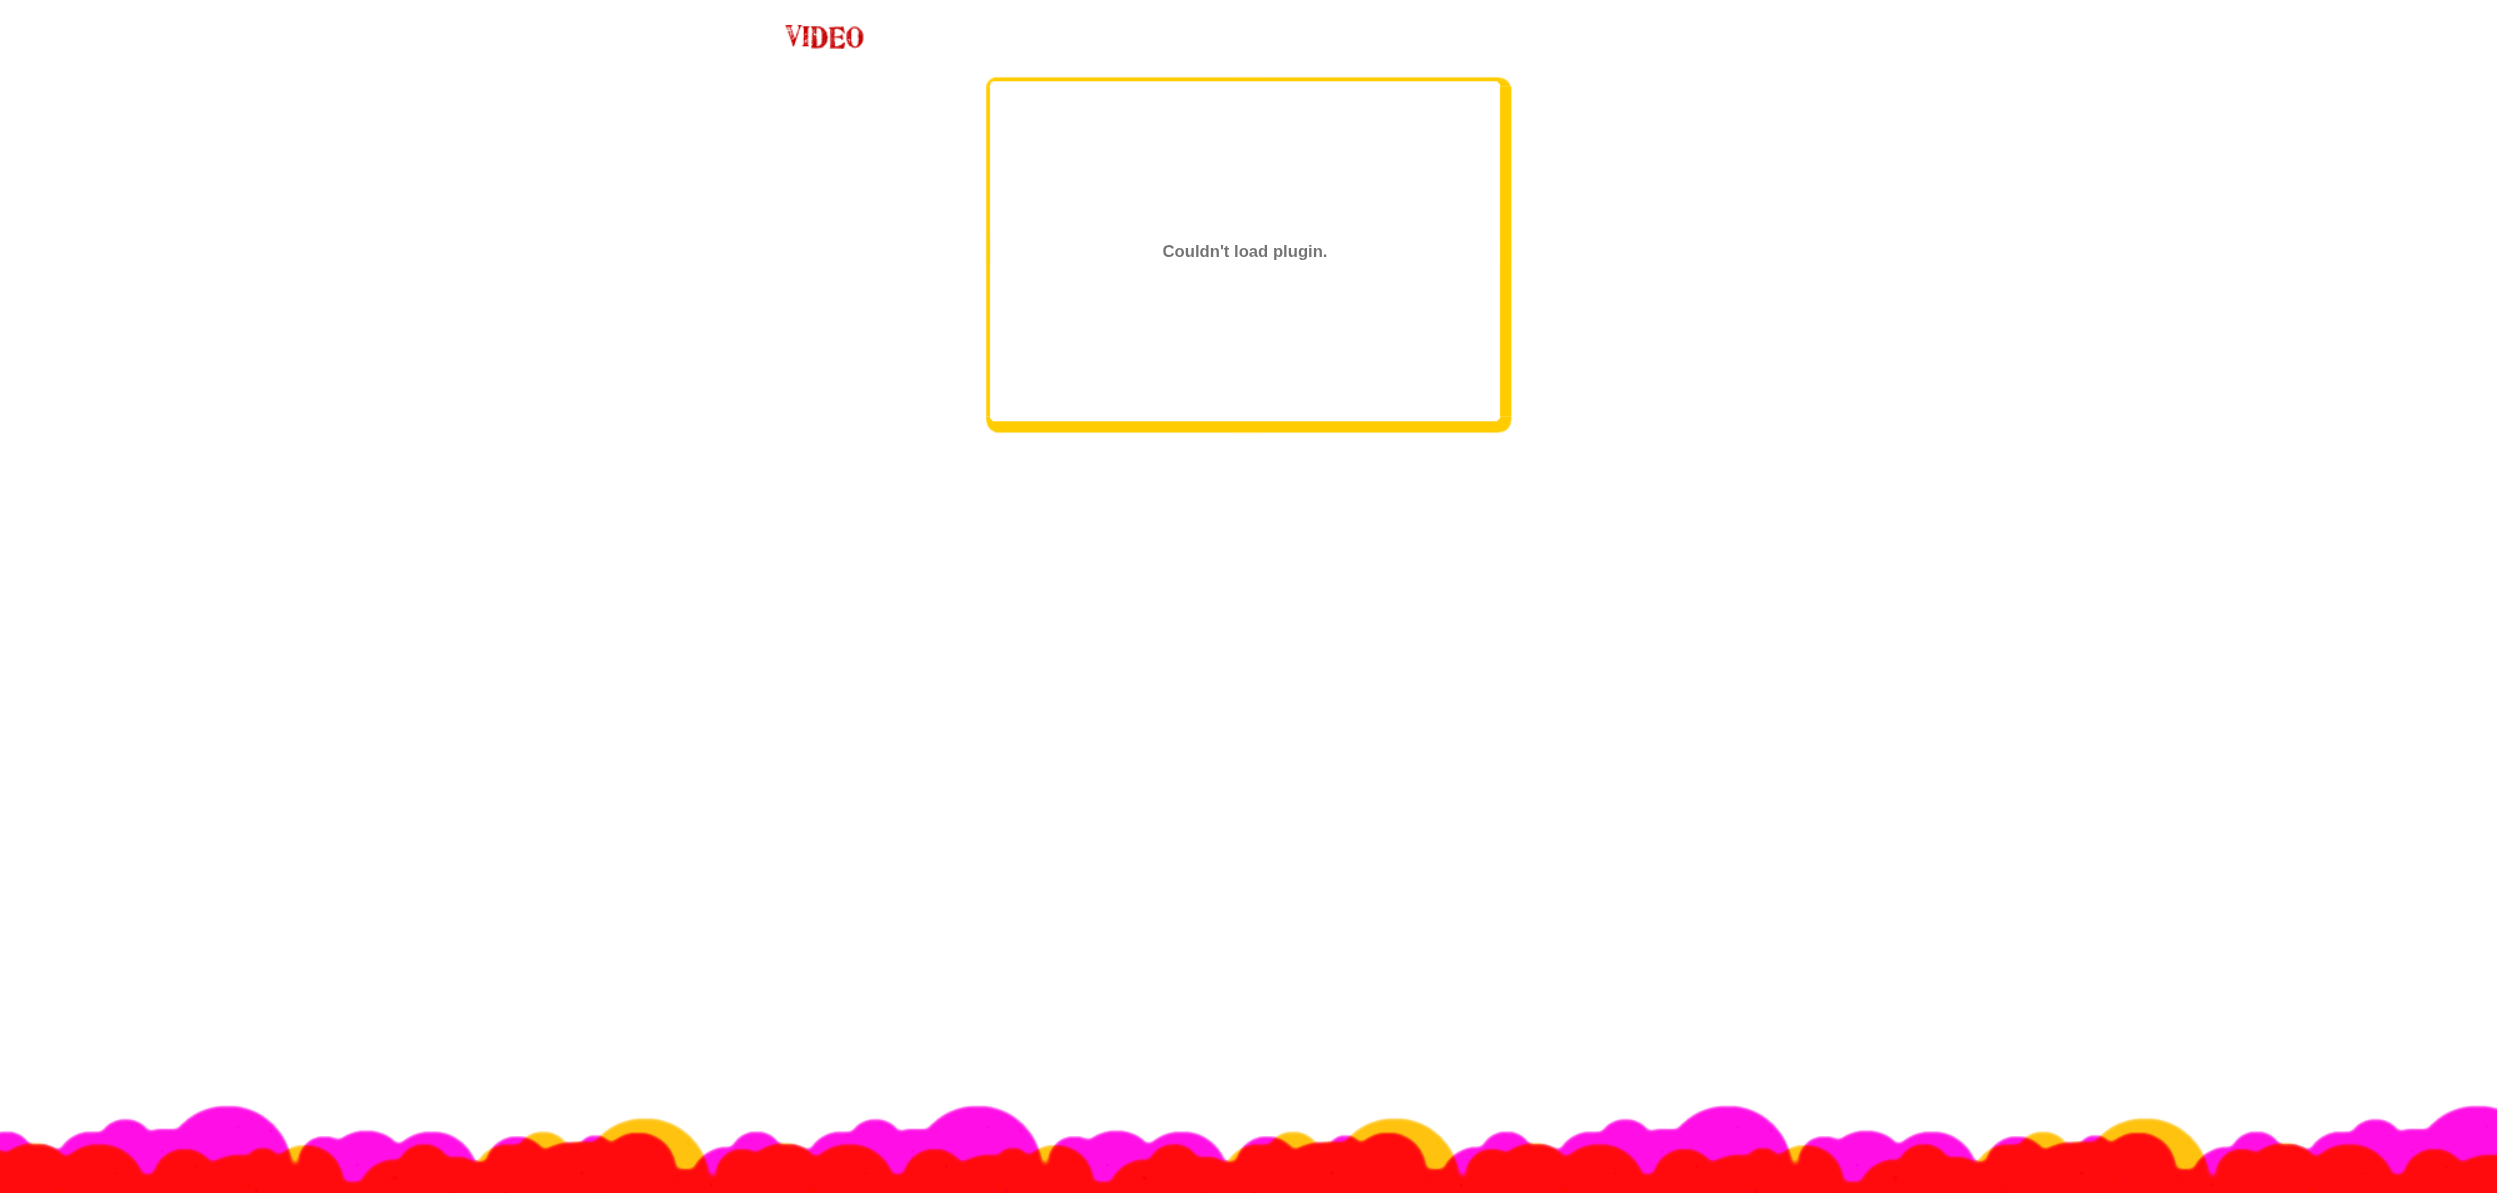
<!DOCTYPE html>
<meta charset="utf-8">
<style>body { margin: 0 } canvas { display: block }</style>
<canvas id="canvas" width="2497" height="1193"></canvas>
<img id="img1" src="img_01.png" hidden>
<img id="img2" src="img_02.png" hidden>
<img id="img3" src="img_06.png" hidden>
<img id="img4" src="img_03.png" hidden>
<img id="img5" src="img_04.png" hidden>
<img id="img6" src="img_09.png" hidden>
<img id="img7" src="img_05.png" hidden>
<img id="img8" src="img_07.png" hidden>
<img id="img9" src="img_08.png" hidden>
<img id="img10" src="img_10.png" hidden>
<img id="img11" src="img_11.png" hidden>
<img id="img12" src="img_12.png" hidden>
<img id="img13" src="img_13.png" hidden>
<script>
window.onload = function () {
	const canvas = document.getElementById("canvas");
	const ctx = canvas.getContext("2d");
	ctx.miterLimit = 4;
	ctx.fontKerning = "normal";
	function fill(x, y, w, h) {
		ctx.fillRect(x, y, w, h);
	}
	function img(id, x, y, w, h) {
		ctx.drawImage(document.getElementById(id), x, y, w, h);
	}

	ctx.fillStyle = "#FFFFFF";
	fill(0, 0, 2497, 1193);
	img("img1", 0, 1105, 2497, 88);
	img("img2", 784, 24, 80, 25);
	img("img3", 985, 86, 6, 331);
	img("img4", 985, 76, 10, 11);
	img("img5", 995, 76, 500, 6);
	ctx.fillStyle = "#FFFAE9";
	fill(1233, 76, 24, 1);
	img("img6", 1499, 86, 14, 331);
	img("img7", 1495, 76, 17, 11);
	img("img8", 989, 239, 2, 25);
	img("img9", 1163, 245, 164, 15);
	img("img10", 1499, 239, 14, 25);
	img("img11", 985, 416, 10, 17);
	img("img12", 995, 421, 500, 13);
	fill(1233, 433, 24, 1);
	img("img13", 1495, 416, 18, 18);
};
</script>
